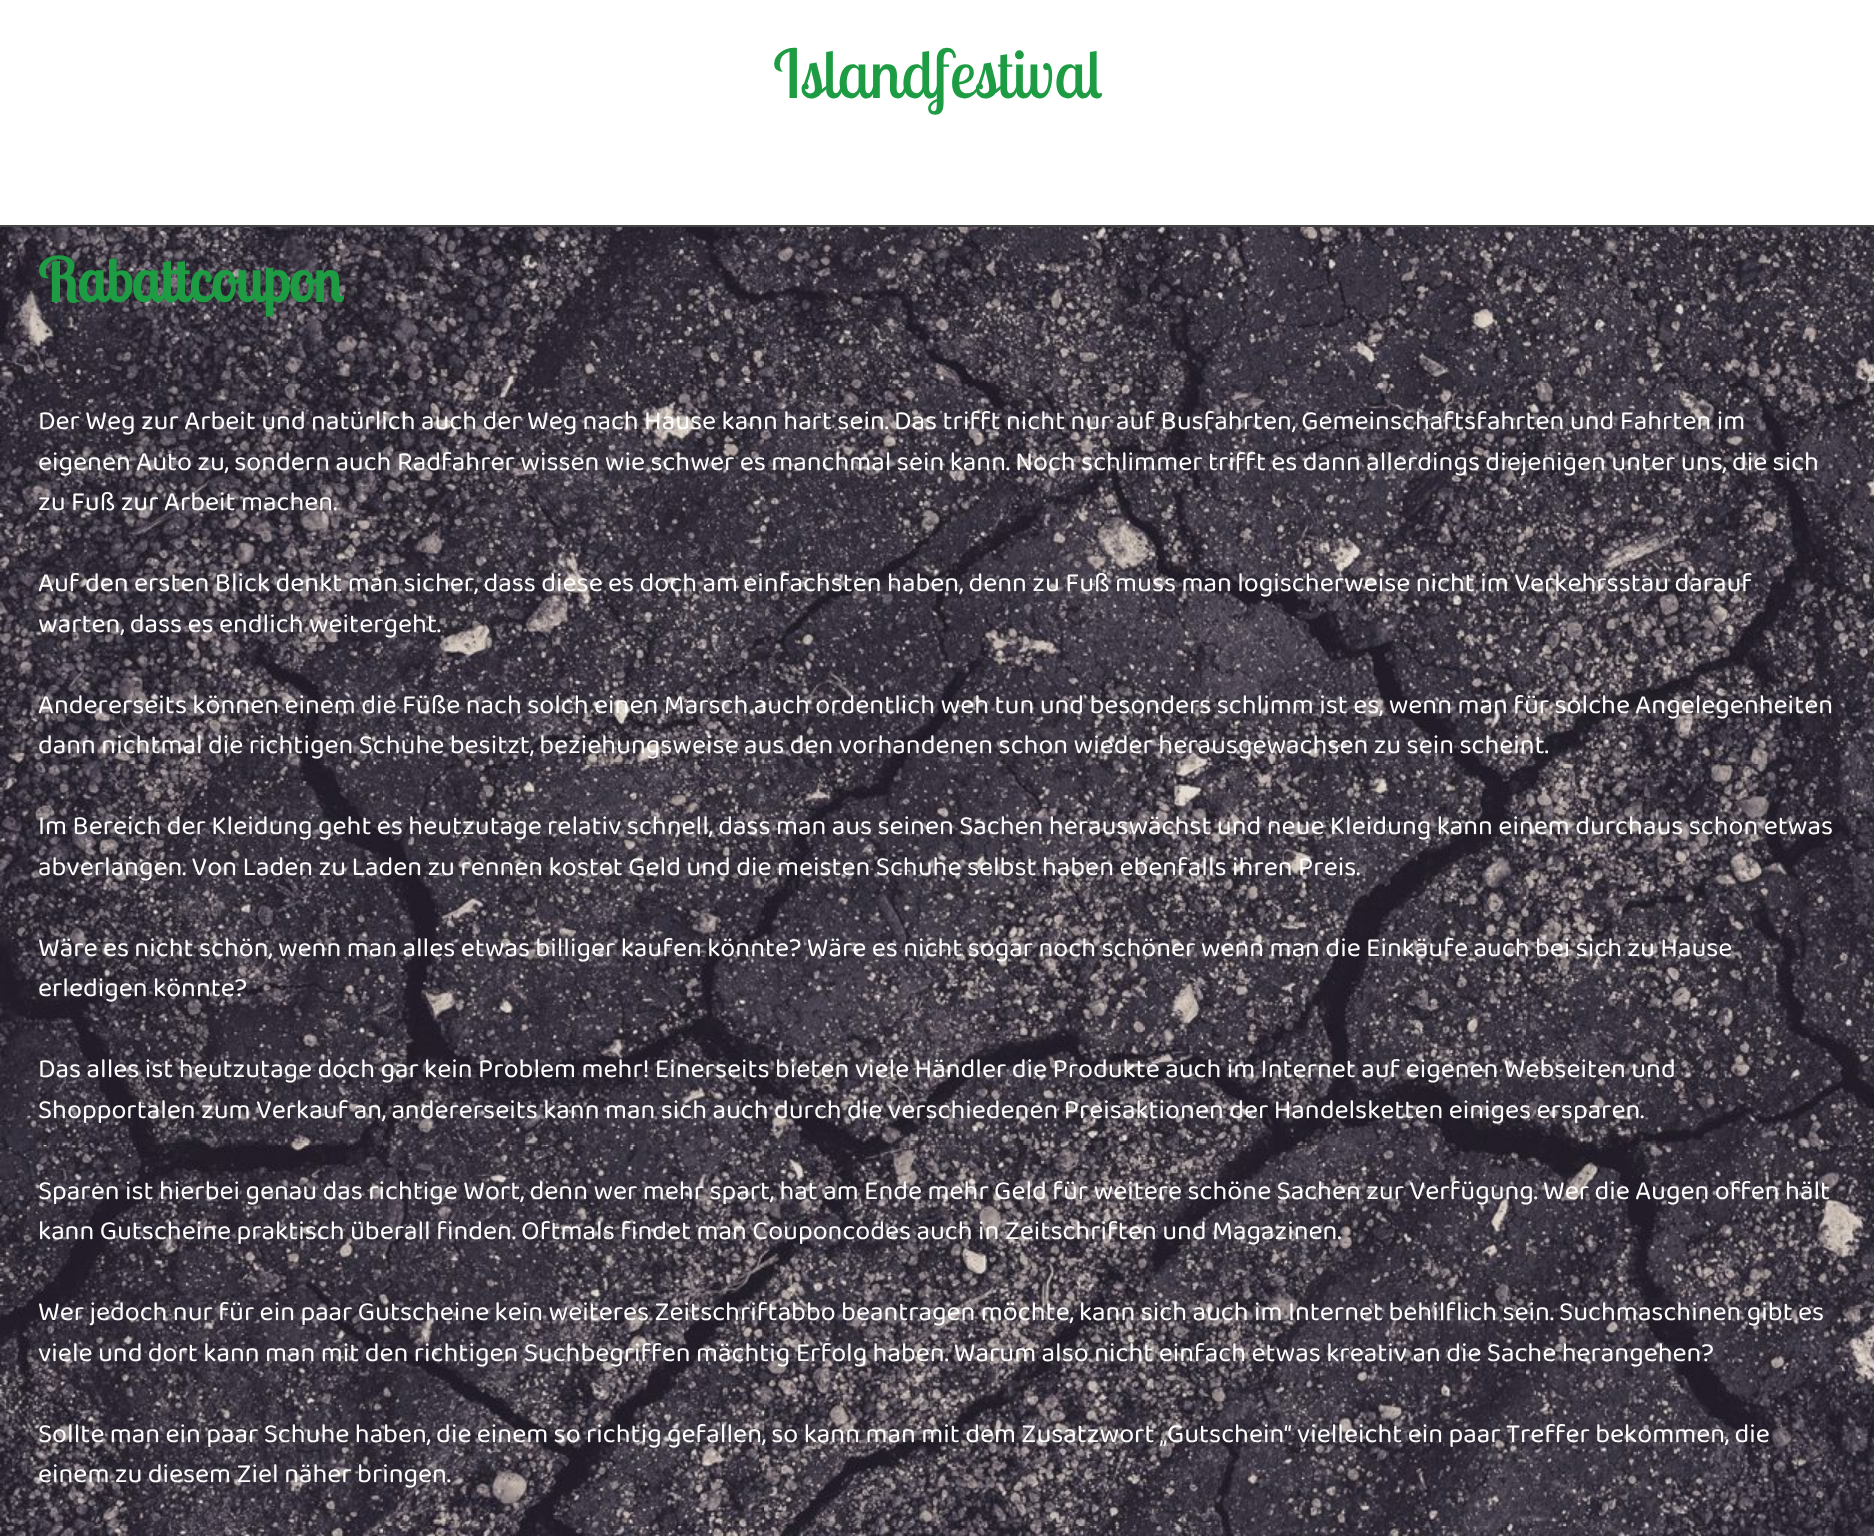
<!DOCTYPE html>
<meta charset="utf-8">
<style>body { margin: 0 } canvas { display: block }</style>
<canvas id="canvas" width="1874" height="1536"></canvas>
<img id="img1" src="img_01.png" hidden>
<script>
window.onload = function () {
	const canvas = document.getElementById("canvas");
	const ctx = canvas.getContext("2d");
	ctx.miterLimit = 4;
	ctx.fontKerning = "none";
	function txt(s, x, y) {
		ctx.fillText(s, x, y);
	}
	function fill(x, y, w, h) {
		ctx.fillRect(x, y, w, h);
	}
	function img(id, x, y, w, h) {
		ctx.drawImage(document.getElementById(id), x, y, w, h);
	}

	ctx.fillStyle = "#FFFFFF";
	fill(0, 0, 1874, 1536);
	img("img1", 0, 227, 1874, 1309);
	ctx.fillStyle = "#444444";
	fill(0, 225, 1874, 2);
	ctx.font = "67px Lobster Two";
	ctx.fillStyle = "#1E9C43";
	txt("Islandfestival", 773, 98);
	ctx.font = "bold 60px Lobster Two";
	txt("Rabattcoupon", 38, 302);
	ctx.font = "27px 'Baloo Thambi 2'";
	ctx.fillStyle = "#FFFFFF";
	txt("Der Weg zur Arbeit und natürlich auch der Weg nach Hause kann hart sein. Das trifft nicht nur auf Busfahrten, Gemeinschaftsfahrten und Fahrten im", 38, 429);
	txt("eigenen Auto zu, sondern auch Radfahrer wissen wie schwer es manchmal sein kann. Noch schlimmer trifft es dann allerdings diejenigen unter uns, die sich", 38, 470);
	txt("zu Fuß zur Arbeit machen.", 38, 510);
	txt("Auf den ersten Blick denkt man sicher, dass diese es doch am einfachsten haben, denn zu Fuß muss man logischerweise nicht im Verkehrsstau darauf", 38, 591);
	txt("warten, dass es endlich weitergeht.", 38, 632);
	txt("Andererseits können einem die Füße nach solch einen Marsch auch ordentlich weh tun und besonders schlimm ist es, wenn man für solche Angelegenheiten", 38, 713);
	txt("dann nichtmal die richtigen Schuhe besitzt, beziehungsweise aus den vorhandenen schon wieder herausgewachsen zu sein scheint.", 38, 753);
	txt("Im Bereich der Kleidung geht es heutzutage relativ schnell, dass man aus seinen Sachen herauswächst und neue Kleidung kann einem durchaus schon etwas", 38, 834);
	txt("abverlangen. Von Laden zu Laden zu rennen kostet Geld und die meisten Schuhe selbst haben ebenfalls ihren Preis.", 38, 875);
	txt("Wäre es nicht schön, wenn man alles etwas billiger kaufen könnte? Wäre es nicht sogar noch schöner wenn man die Einkäufe auch bei sich zu Hause", 38, 956);
	txt("erledigen könnte?", 38, 996);
	txt("Das alles ist heutzutage doch gar kein Problem mehr! Einerseits bieten viele Händler die Produkte auch im Internet auf eigenen Webseiten und", 38, 1077);
	txt("Shopportalen zum Verkauf an, andererseits kann man sich auch durch die verschiedenen Preisaktionen der Handelsketten einiges ersparen.", 38, 1118);
	txt("Sparen ist hierbei genau das richtige Wort, denn wer mehr spart, hat am Ende mehr Geld für weitere schöne Sachen zur Verfügung. Wer die Augen offen hält", 38, 1199);
	txt("kann Gutscheine praktisch überall finden. Oftmals findet man Couponcodes auch in Zeitschriften und Magazinen.", 38, 1239);
	txt("Wer jedoch nur für ein paar Gutscheine kein weiteres Zeitschriftabbo beantragen möchte, kann sich auch im Internet behilflich sein. Suchmaschinen gibt es", 38, 1320);
	txt("viele und dort kann man mit den richtigen Suchbegriffen mächtig Erfolg haben. Warum also nicht einfach etwas kreativ an die Sache herangehen?", 38, 1361);
	txt("Sollte man ein paar Schuhe haben, die einem so richtig gefallen, so kann man mit dem Zusatzwort „Gutschein“ vielleicht ein paar Treffer bekommen, die", 38, 1442);
	txt("einem zu diesem Ziel näher bringen.", 38, 1482);
};
</script>
